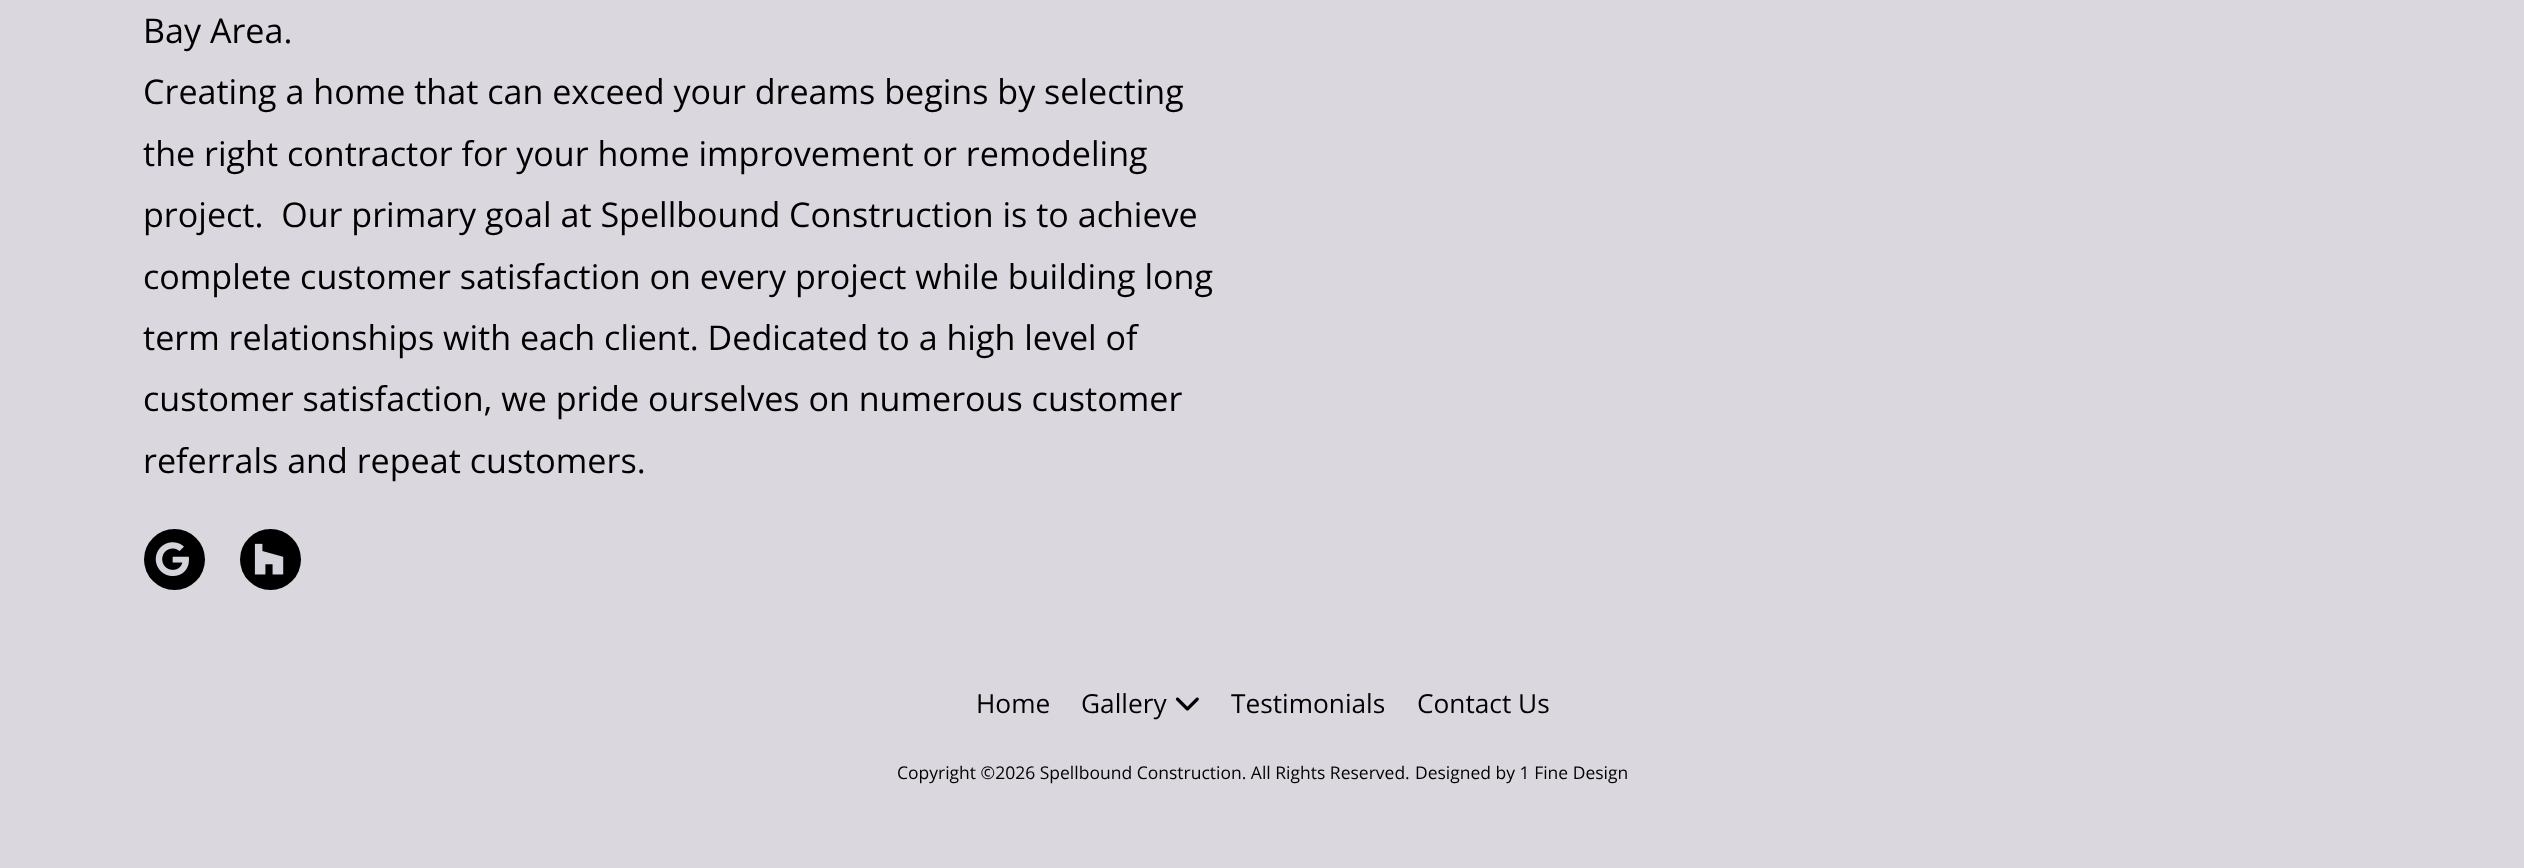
<!DOCTYPE html>
<meta charset="utf-8">
<style>body { margin: 0 } canvas { display: block }</style>
<canvas id="canvas" width="2524" height="868"></canvas>
<img id="img1" src="img_01.png" hidden>
<img id="img2" src="img_02.png" hidden>
<img id="img3" src="img_03.png" hidden>
<script>
window.onload = function () {
	const canvas = document.getElementById("canvas");
	const ctx = canvas.getContext("2d");
	ctx.miterLimit = 4;
	ctx.fontKerning = "normal";
	function txt(s, x, y) {
		ctx.fillText(s, x, y);
	}
	function fill(x, y, w, h) {
		ctx.fillRect(x, y, w, h);
	}
	function img(id, x, y, w, h) {
		ctx.drawImage(document.getElementById(id), x, y, w, h);
	}

	ctx.fillStyle = "#DAD8DE";
	fill(0, 0, 2524, 868);
	ctx.fillStyle = "#000000";
	ctx.beginPath();
	ctx.arc(174.5, 559.5, 30.5, 0, Math.PI * 2);
	ctx.fill();
	img("img1", 155, 542, 34, 35);
	ctx.beginPath();
	ctx.arc(270.5, 559.5, 30.5, 0, Math.PI * 2);
	ctx.fill();
	img("img2", 254, 543, 30, 32);
	img("img3", 1175, 697, 24, 14);
	ctx.font = "34.1px Open Sans";
	txt("Bay Area.", 143, 43);
	txt("Creating a home that can exceed your dreams begins by selecting", 143, 104);
	txt("the right contractor for your home improvement or remodeling", 143, 166);
	txt("project.  Our primary goal at Spellbound Construction is to achieve", 143, 227);
	txt("complete customer satisfaction on every project while building long", 143, 289);
	txt("term relationships with each client. Dedicated to a high level of", 143, 350);
	txt("customer satisfaction, we pride ourselves on numerous customer", 143, 411);
	txt("referrals and repeat customers.", 143, 473);
	ctx.font = "26.25px Open Sans";
	txt("Home", 976, 713);
	txt("Gallery", 1081, 713);
	txt("Testimonials", 1231, 713);
	txt("Contact Us", 1417, 713);
	ctx.font = "17.5px Open Sans";
	txt("Copyright ©2026 Spellbound Construction. All Rights Reserved.", 897, 779);
	txt("Designed by 1 Fine Design", 1415, 779);
};
</script>
